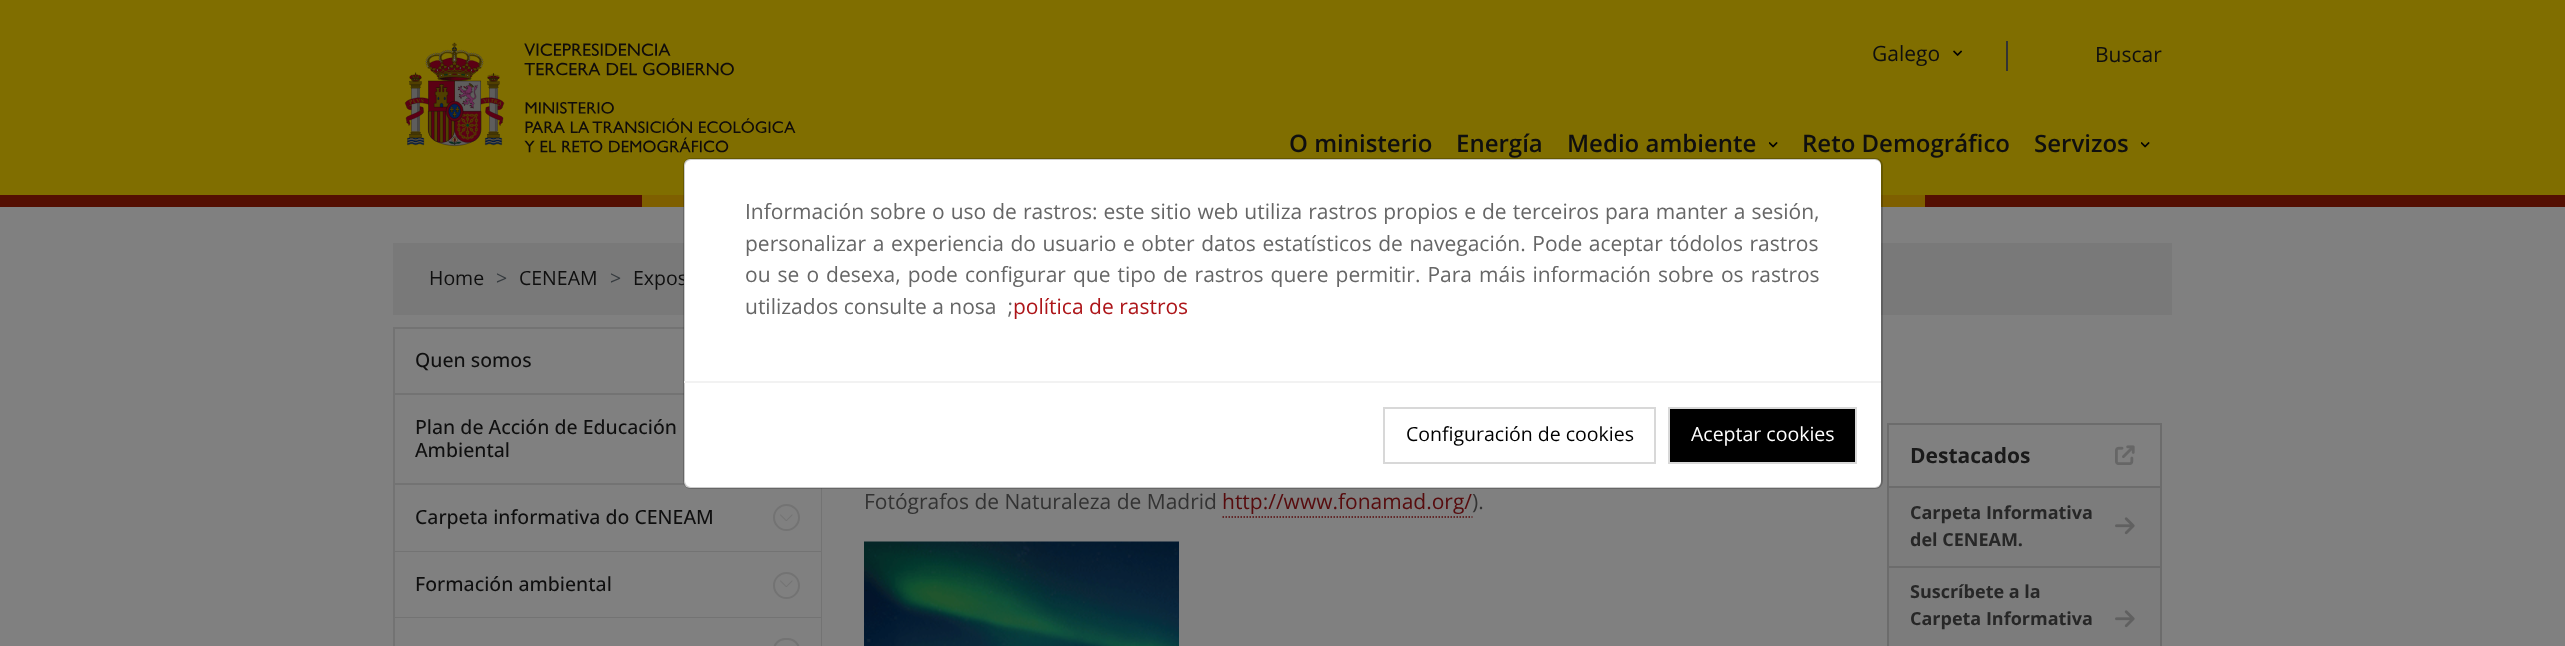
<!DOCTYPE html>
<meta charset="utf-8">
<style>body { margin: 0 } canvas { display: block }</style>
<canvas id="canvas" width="2565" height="646"></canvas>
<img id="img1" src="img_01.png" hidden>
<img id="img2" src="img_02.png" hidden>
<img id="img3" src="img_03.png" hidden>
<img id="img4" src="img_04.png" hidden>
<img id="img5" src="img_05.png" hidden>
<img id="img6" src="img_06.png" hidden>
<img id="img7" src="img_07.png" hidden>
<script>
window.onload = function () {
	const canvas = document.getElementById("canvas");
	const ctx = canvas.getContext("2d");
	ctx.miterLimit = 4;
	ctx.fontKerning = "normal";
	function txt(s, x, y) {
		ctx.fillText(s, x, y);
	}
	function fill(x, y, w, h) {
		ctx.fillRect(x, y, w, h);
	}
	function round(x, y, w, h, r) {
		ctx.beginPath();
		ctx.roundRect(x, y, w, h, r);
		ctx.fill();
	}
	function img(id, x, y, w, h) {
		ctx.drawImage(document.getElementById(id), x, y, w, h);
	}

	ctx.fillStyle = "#808080";
	fill(0, 0, 2565, 646);
	ctx.fillStyle = "#806E00";
	fill(0, 0, 2565, 195);
	ctx.fillStyle = "#7E5F00";
	fill(642, 195, 1283, 12);
	img("img1", 404, 42, 392, 111);
	img("img2", 1953, 50, 9, 6);
	ctx.fillStyle = "#333333";
	fill(2006, 41, 2, 30);
	img("img3", 1769, 142, 9, 6);
	img("img3", 2141, 142, 9, 6);
	ctx.fillStyle = "#540F02";
	fill(0, 195, 642, 12);
	fill(1925, 195, 640, 12);
	ctx.fillStyle = "#797979";
	fill(393, 243, 1779, 72);
	ctx.strokeStyle = "#737373";
	ctx.lineWidth = 2;
	ctx.strokeRect(394, 328, 427, 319);
	ctx.fillStyle = "#737373";
	fill(395, 393, 289, 2);
	fill(395, 483, 290, 2);
	ctx.fillStyle = "#808080";
	fill(820, 485, 1, 66);
	ctx.fillStyle = "#737373";
	fill(395, 551, 426, 1);
	img("img4", 780, 514, 13, 7);
	ctx.beginPath();
	ctx.arc(786.5, 517.5, 12.5, 0, Math.PI * 2);
	ctx.stroke();
	ctx.fillStyle = "#808080";
	fill(820, 552, 1, 65);
	ctx.fillStyle = "#737373";
	fill(395, 617, 426, 1);
	img("img4", 780, 580, 13, 7);
	ctx.beginPath();
	ctx.arc(786.5, 585.5, 12.5, 0, Math.PI * 2);
	ctx.stroke();
	ctx.fillStyle = "#808080";
	fill(820, 618, 1, 28);
	ctx.beginPath();
	ctx.roundRect(774, 639, 25, 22, 12.5);
	ctx.stroke();
	ctx.beginPath();
	ctx.moveTo(1222.5, 517);
	ctx.lineTo(1472.5, 517);
	ctx.strokeStyle = "#570B0D";
	ctx.lineWidth = 1.5;
	ctx.setLineDash([1.5, 1.5]);
	ctx.stroke();
	img("img5", 864, 541, 315, 105);
	ctx.fillStyle = "#7C7C7C";
	fill(1889, 488, 271, 158);
	ctx.fillStyle = "#6C6C6C";
	fill(1887, 423, 275, 2);
	fill(2160, 423, 2, 223);
	fill(1887, 423, 2, 223);
	fill(1889, 486, 271, 2);
	img("img6", 2115, 445, 20, 20);
	fill(1889, 566, 271, 2);
	img("img7", 2115, 517, 20, 18);
	img("img7", 2115, 610, 20, 18);
	ctx.font = "21px Open Sans";
	ctx.fillStyle = "#0F0F0F";
	txt("Galego", 1872, 61);
	txt("Buscar", 2095, 62);
	ctx.font = "600 24px Open Sans";
	txt("O ministerio", 1289, 152);
	txt("Energía", 1456, 152);
	txt("Medio ambiente", 1567, 152);
	txt("Reto Demográfico", 1802, 152);
	txt("Servizos", 2034, 152);
	ctx.font = "19.5px Open Sans";
	txt("Home", 429, 285);
	ctx.fillStyle = "#363B3F";
	txt(">", 496, 285);
	ctx.fillStyle = "#0F0F0F";
	txt("CENEAM", 519, 285);
	ctx.fillStyle = "#363B3F";
	txt(">", 610, 285);
	ctx.fillStyle = "#0F0F0F";
	txt("Expos", 633, 285);
	ctx.fillStyle = "#FFFFFF";
	round(684, 159, 1197, 329, 6);
	ctx.beginPath();
	ctx.roundRect(684, 159, 1198, 329, 7);
	ctx.strokeStyle = "rgba(0, 0, 0, 0.2)";
	ctx.lineWidth = 2;
	ctx.setLineDash([]);
	ctx.stroke();
	ctx.wordSpacing = "0.6px";
	ctx.font = "21px Open Sans";
	ctx.fillStyle = "#666666";
	txt("Información sobre o uso de rastros: este sitio web utiliza rastros propios e de terceiros para manter a sesión,", 745, 219);
	ctx.wordSpacing = "1.1px";
	txt("personalizar a experiencia do usuario e obter datos estatísticos de navegación. Pode aceptar tódolos rastros", 745, 251);
	ctx.wordSpacing = "1.6px";
	txt("ou se o desexa, pode configurar que tipo de rastros quere permitir. Para máis información sobre os rastros", 745, 282);
	ctx.wordSpacing = "0px";
	txt("utilizados consulte a nosa  ;", 745, 314);
	ctx.fillStyle = "#AD1519";
	txt("política de rastros", 1013, 314);
	ctx.fillStyle = "#F2F2F2";
	fill(684, 381, 1197, 2);
	ctx.strokeStyle = "#D8D8D8";
	ctx.strokeRect(1384, 408, 271, 55);
	ctx.font = "19.5px Open Sans";
	ctx.fillStyle = "#000000";
	txt("Configuración de cookies", 1406, 441);
	ctx.beginPath();
	ctx.rect(1669, 408, 187, 55);
	ctx.fill();
	ctx.stroke();
	ctx.fillStyle = "#FFFFFF";
	txt("Aceptar cookies", 1691, 441);
	ctx.font = "500 19.5px Open Sans";
	ctx.fillStyle = "#0F0F0F";
	txt("Quen somos", 415, 367);
	txt("Plan de Acción de Educación", 415, 434);
	txt("Ambiental", 415, 457);
	txt("Carpeta informativa do CENEAM", 415, 524);
	txt("Formación ambiental", 415, 591);
	ctx.font = "21px Open Sans";
	ctx.fillStyle = "#333333";
	txt("Fotógrafos de Naturaleza de Madrid", 864, 509);
	ctx.fillStyle = "#570B0D";
	txt("http://www.fonamad.org/", 1222, 509);
	ctx.fillStyle = "#333333";
	txt(").", 1472, 509);
	ctx.font = "bold 21px Open Sans";
	ctx.fillStyle = "#1A1A1A";
	txt("Destacados", 1910, 463);
	ctx.font = "bold 18px Open Sans";
	ctx.fillStyle = "#272727";
	txt("Carpeta Informativa", 1910, 519);
	txt("del CENEAM.", 1910, 546);
	txt("Suscríbete a la", 1910, 598);
	txt("Carpeta Informativa", 1910, 625);
};
</script>
